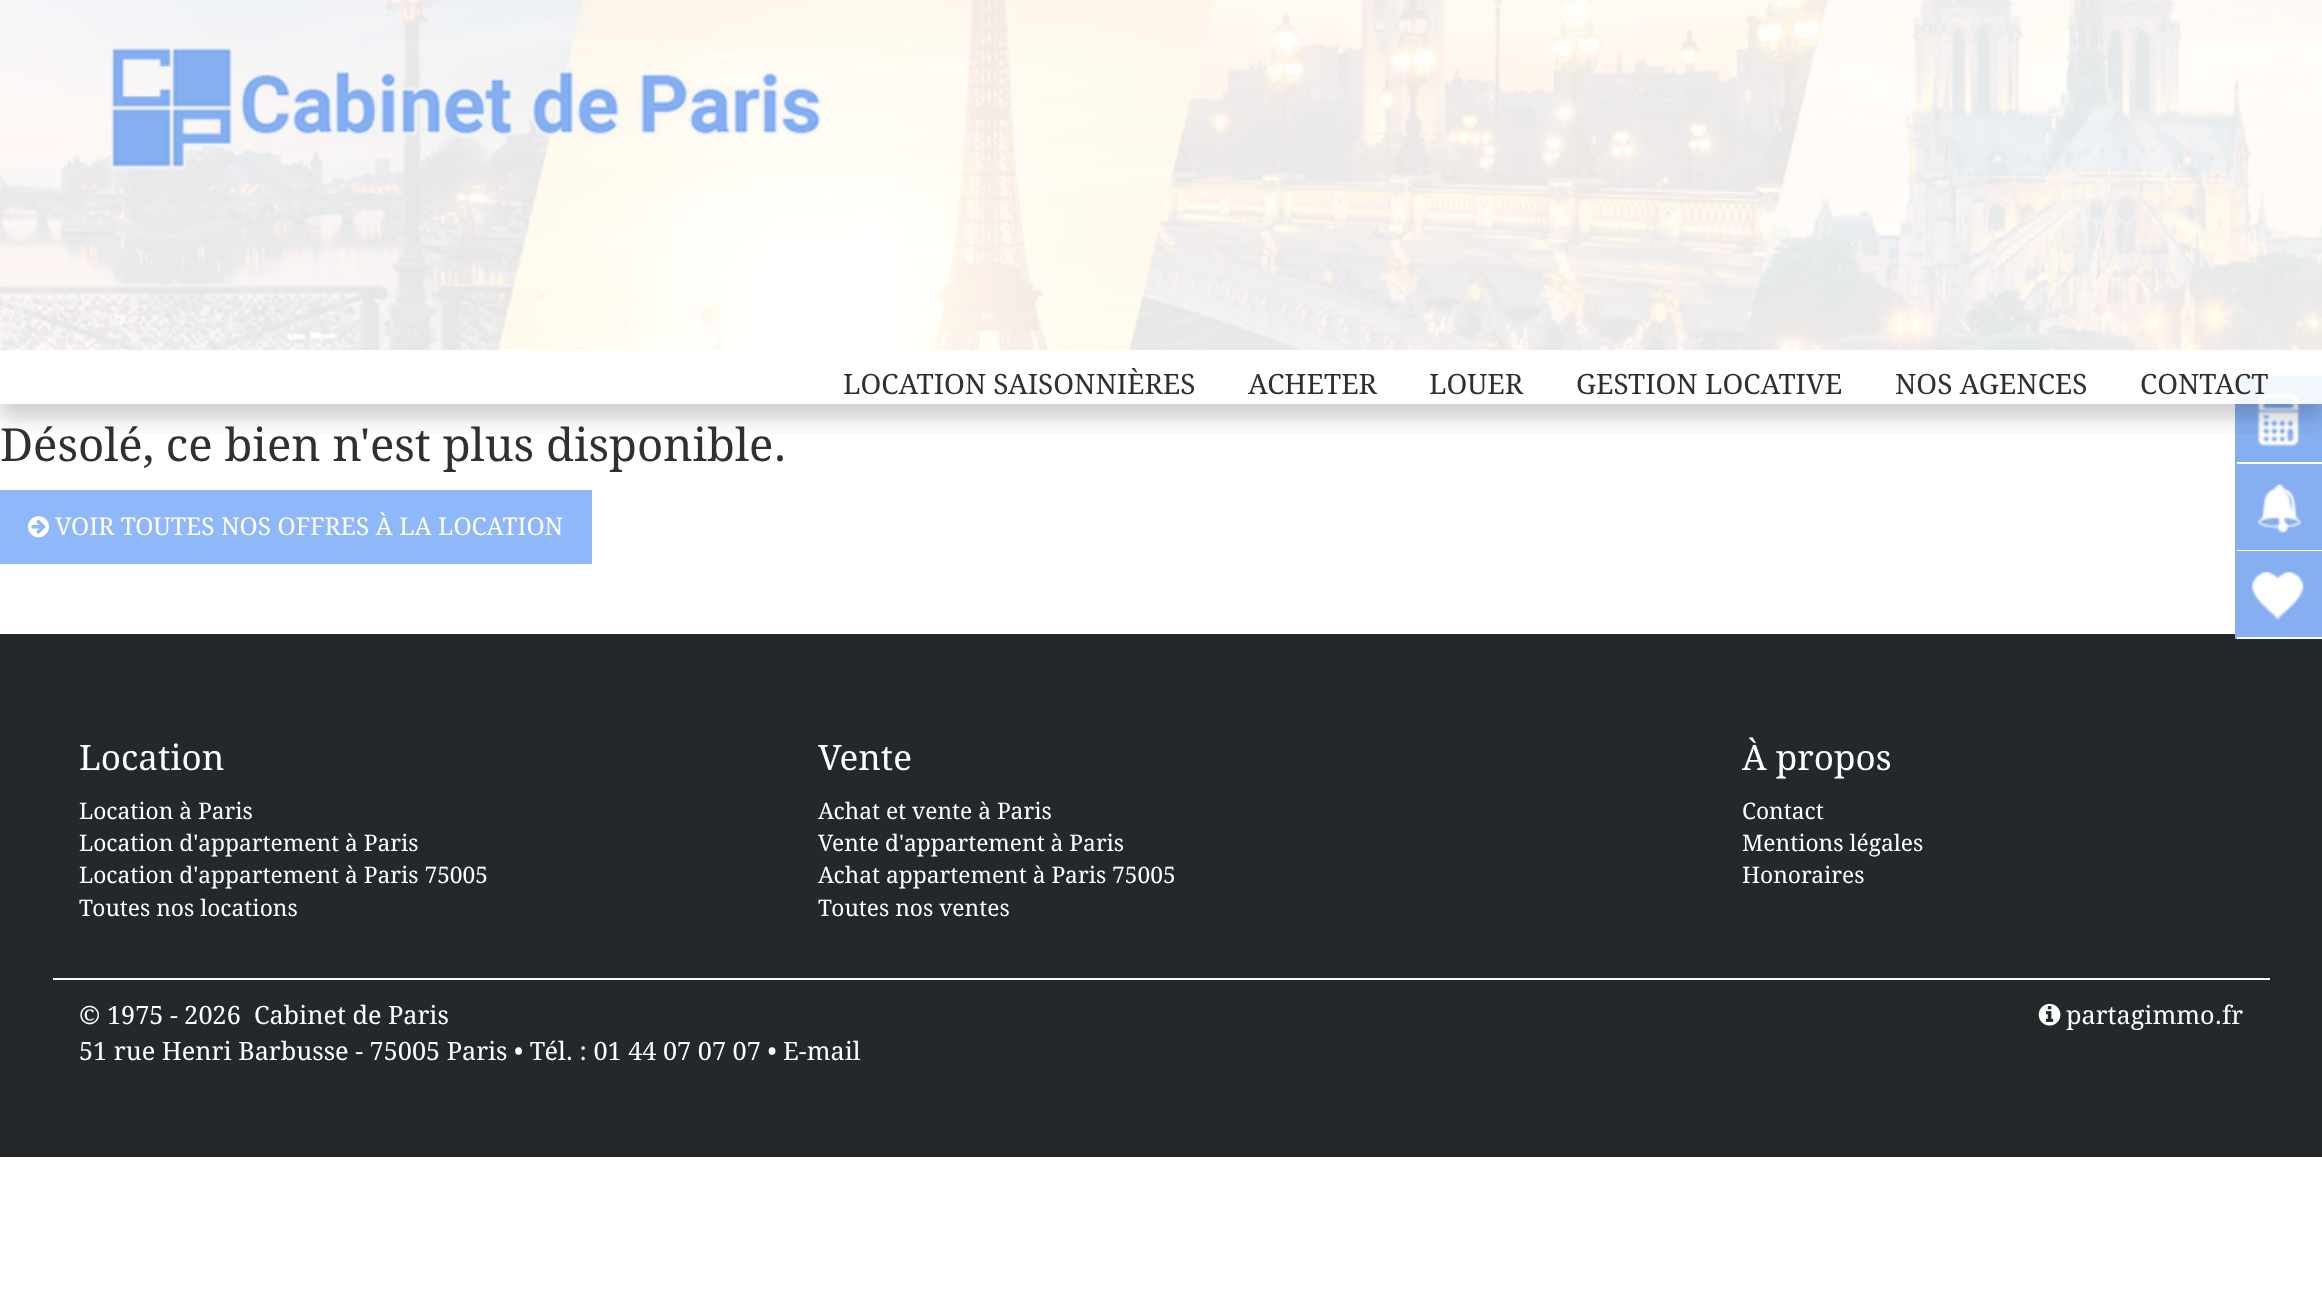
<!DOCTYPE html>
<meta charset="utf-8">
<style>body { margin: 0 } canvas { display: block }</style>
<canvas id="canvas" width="2322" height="1309"></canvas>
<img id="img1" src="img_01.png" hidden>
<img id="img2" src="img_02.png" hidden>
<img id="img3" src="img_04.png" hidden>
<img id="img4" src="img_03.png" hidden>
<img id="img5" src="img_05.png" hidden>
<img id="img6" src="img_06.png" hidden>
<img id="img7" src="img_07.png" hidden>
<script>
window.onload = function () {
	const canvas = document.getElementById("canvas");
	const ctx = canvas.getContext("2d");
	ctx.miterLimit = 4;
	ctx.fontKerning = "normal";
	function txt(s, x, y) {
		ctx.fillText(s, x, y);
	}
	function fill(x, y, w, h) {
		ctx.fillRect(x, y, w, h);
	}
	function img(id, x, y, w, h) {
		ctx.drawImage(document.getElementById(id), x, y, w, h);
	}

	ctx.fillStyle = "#FFFFFF";
	fill(0, 0, 2322, 1309);
	img("img1", 0, 0, 2322, 350);
	ctx.fillStyle = "#8FB8FA";
	fill(0, 490, 592, 74);
	img("img2", 28, 516, 21, 22);
	ctx.fillStyle = "#86AFF1";
	fill(2237, 376, 85, 86);
	fill(2235, 376, 2, 175);
	img("img3", 2257, 393, 43, 54);
	ctx.save();
	ctx.beginPath();
	ctx.rect(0, 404, 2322, 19);
	ctx.clip();
	ctx.fillStyle = "rgba(0, 0, 0, 0.1)";
	ctx.filter = "blur(9px)";
	ctx.beginPath();
	ctx.rect(0, 11, 2322, 404);
	ctx.fill();
	ctx.filter = "none";
	ctx.restore();
	fill(2237, 464, 85, 86);
	ctx.save();
	ctx.beginPath();
	ctx.rect(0, 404, 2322, 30);
	ctx.clip();
	ctx.fillStyle = "rgba(0, 0, 0, 0.1)";
	ctx.filter = "blur(14px)";
	ctx.beginPath();
	ctx.rect(0, 18, 2322, 404);
	ctx.fill();
	ctx.filter = "none";
	ctx.restore();
	ctx.fillStyle = "rgba(255, 255, 255, 0.9)";
	fill(0, 0, 2322, 404);
	img("img4", 110, 48, 712, 122);
	img("img5", 2257, 483, 45, 50);
	ctx.fillStyle = "#23282B";
	fill(0, 634, 2322, 523);
	ctx.fillStyle = "#86AFF1";
	fill(2237, 551, 85, 86);
	ctx.fillStyle = "#FFFFFF";
	fill(2235, 637, 87, 2);
	ctx.fillStyle = "#86AFF1";
	fill(2235, 551, 2, 88);
	img("img6", 2251, 571, 53, 49);
	ctx.fillStyle = "#FFFFFF";
	fill(53, 978, 2217, 2);
	img("img7", 2038, 1003, 23, 23);
	ctx.font = "45.5px Droid Serif";
	ctx.fillStyle = "#303030";
	txt("Désolé, ce bien n'est plus disponible.", 0, 461);
	ctx.font = "24.5px Droid Serif";
	ctx.fillStyle = "#FFFFFF";
	txt("VOIR TOUTES NOS OFFRES À LA LOCATION", 55, 535);
	ctx.font = "28px Droid Serif";
	ctx.fillStyle = "#303030";
	txt("LOCATION SAISONNIÈRES", 843, 394);
	txt("ACHETER", 1248, 394);
	txt("LOUER", 1429, 394);
	txt("GESTION LOCATIVE", 1576, 394);
	txt("NOS AGENCES", 1895, 394);
	txt("CONTACT", 2140, 394);
	ctx.font = "35px Droid Serif";
	ctx.fillStyle = "#FFFFFF";
	txt("Location", 79, 770);
	ctx.font = "22.75px Droid Serif";
	txt("Location à Paris", 79, 819);
	txt("Location d'appartement à Paris", 79, 851);
	txt("Location d'appartement à Paris 75005", 79, 883);
	txt("Toutes nos locations", 79, 916);
	ctx.font = "35px Droid Serif";
	txt("Vente", 818, 770);
	ctx.font = "22.75px Droid Serif";
	txt("Achat et vente à Paris", 818, 819);
	txt("Vente d'appartement à Paris", 818, 851);
	txt("Achat appartement à Paris 75005", 818, 883);
	txt("Toutes nos ventes", 818, 916);
	ctx.font = "35px Droid Serif";
	txt("À propos", 1742, 770);
	ctx.font = "22.75px Droid Serif";
	txt("Contact", 1742, 819);
	txt("Mentions légales", 1742, 851);
	txt("Honoraires", 1742, 883);
	ctx.font = "25.25px Droid Serif";
	txt("© 1975 - 2026  Cabinet de Paris", 79, 1024);
	txt("51 rue Henri Barbusse - 75005 Paris • Tél. : 01 44 07 07 07 • E-mail", 79, 1060);
	txt("partagimmo.fr", 2066, 1024);
};
</script>
